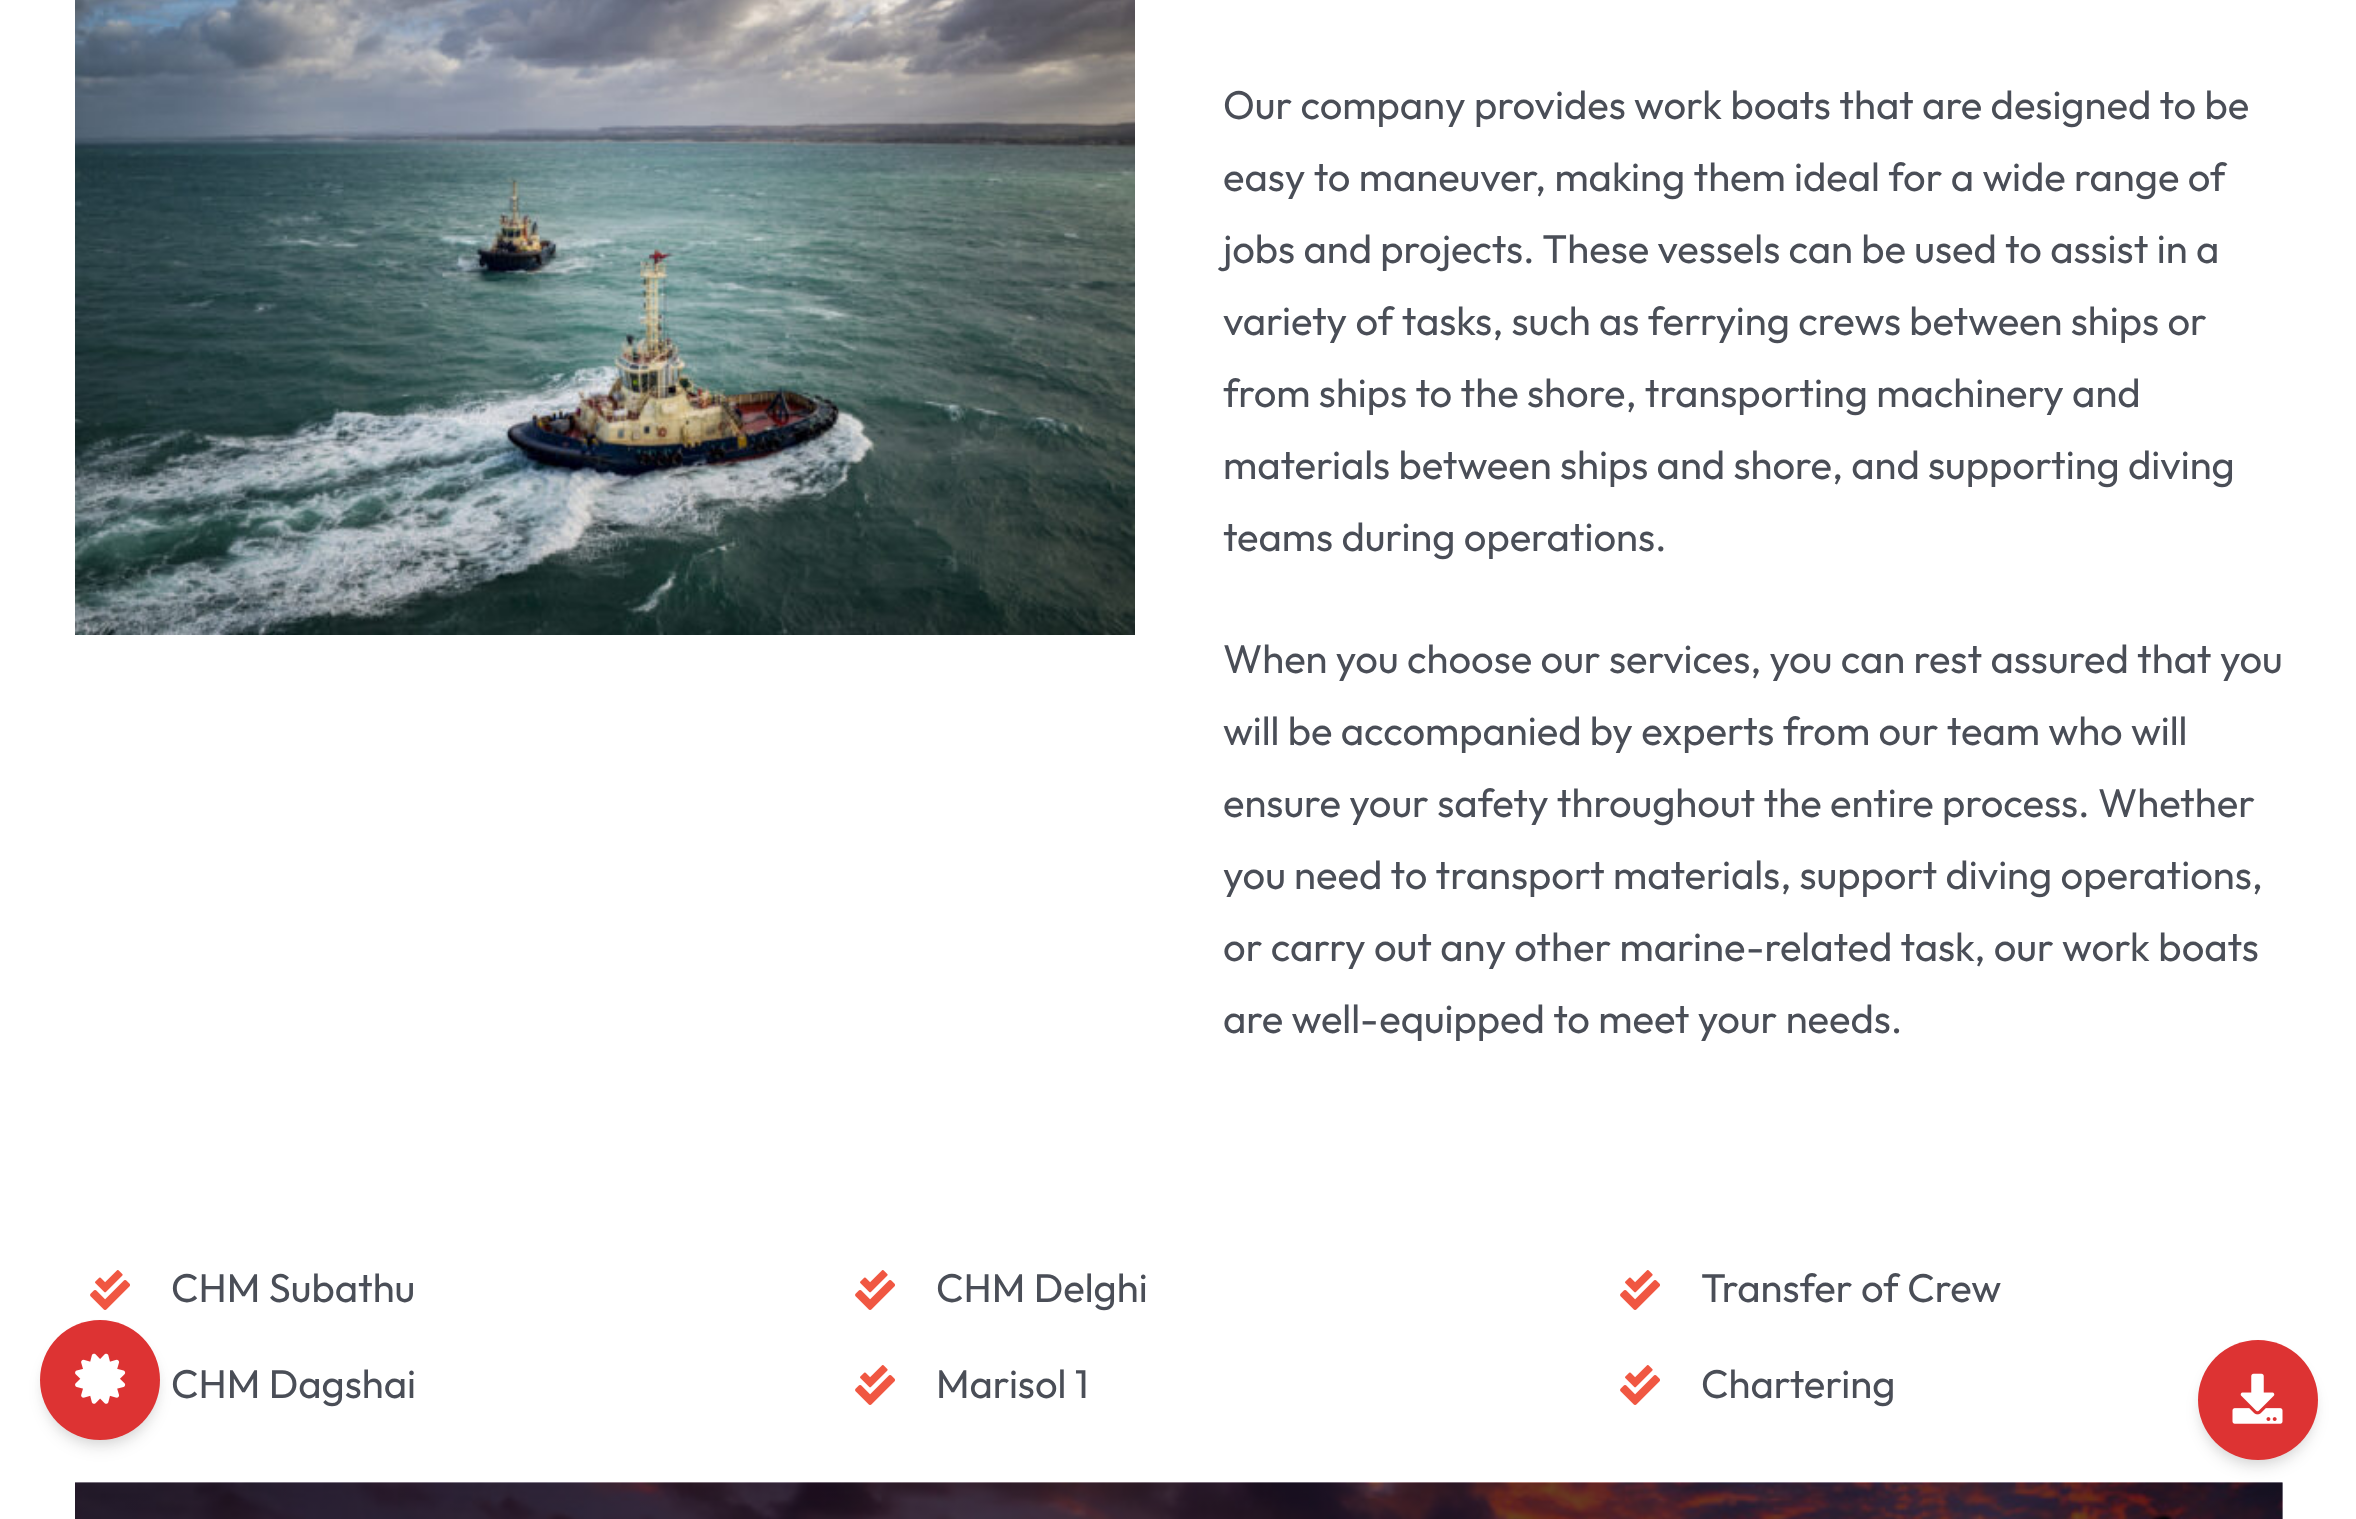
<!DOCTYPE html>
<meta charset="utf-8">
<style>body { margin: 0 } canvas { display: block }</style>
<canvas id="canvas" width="2356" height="1519"></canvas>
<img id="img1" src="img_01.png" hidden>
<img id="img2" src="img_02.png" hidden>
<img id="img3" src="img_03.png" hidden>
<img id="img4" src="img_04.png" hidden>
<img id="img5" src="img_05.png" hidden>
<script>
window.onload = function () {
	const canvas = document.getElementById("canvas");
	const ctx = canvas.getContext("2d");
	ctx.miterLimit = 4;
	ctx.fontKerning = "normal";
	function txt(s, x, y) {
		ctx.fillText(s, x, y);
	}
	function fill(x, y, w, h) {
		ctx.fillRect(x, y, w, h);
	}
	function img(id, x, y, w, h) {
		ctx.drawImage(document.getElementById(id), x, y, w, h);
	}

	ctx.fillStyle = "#FFFFFF";
	fill(0, 0, 2356, 1519);
	img("img1", 75, 0, 1060, 635);
	img("img2", 90, 1270, 40, 40);
	img("img2", 855, 1270, 40, 40);
	img("img2", 855, 1365, 40, 40);
	img("img2", 1620, 1270, 40, 40);
	img("img2", 1620, 1365, 40, 40);
	img("img3", 75, 1482, 2208, 37);
	ctx.fillStyle = "rgba(0, 0, 0, 0.06)";
	ctx.filter = "blur(5px)";
	ctx.beginPath();
	ctx.roundRect(43, 1328, 115, 115, 57.5);
	ctx.fill();
	ctx.filter = "none";
	ctx.fillStyle = "rgba(0, 0, 0, 0.1)";
	ctx.filter = "blur(7.5px)";
	ctx.beginPath();
	ctx.roundRect(43, 1333, 115, 115, 57.5);
	ctx.fill();
	ctx.filter = "none";
	ctx.fillStyle = "#DD3333";
	ctx.beginPath();
	ctx.arc(100, 1380, 60, 0, Math.PI * 2);
	ctx.fill();
	img("img4", 75, 1353, 51, 51);
	ctx.fillStyle = "rgba(0, 0, 0, 0.06)";
	ctx.filter = "blur(5px)";
	ctx.beginPath();
	ctx.roundRect(2200, 1348, 115, 115, 57.5);
	ctx.fill();
	ctx.filter = "none";
	ctx.fillStyle = "rgba(0, 0, 0, 0.1)";
	ctx.filter = "blur(7.5px)";
	ctx.beginPath();
	ctx.roundRect(2200, 1353, 115, 115, 57.5);
	ctx.fill();
	ctx.filter = "none";
	ctx.fillStyle = "#DD3333";
	ctx.beginPath();
	ctx.arc(2258, 1400, 60, 0, Math.PI * 2);
	ctx.fill();
	img("img5", 2232, 1373, 51, 51);
	ctx.font = "40px Outfit";
	ctx.fillStyle = "#4A4E57";
	txt("Our company provides work boats that are designed to be", 1223, 119);
	txt("easy to maneuver, making them ideal for a wide range of", 1223, 191);
	txt("jobs and projects. These vessels can be used to assist in a", 1223, 263);
	txt("variety of tasks, such as ferrying crews between ships or", 1223, 335);
	txt("from ships to the shore, transporting machinery and", 1223, 407);
	txt("materials between ships and shore, and supporting diving", 1223, 479);
	txt("teams during operations.", 1223, 551);
	txt("When you choose our services, you can rest assured that you", 1223, 673);
	txt("will be accompanied by experts from our team who will", 1223, 745);
	txt("ensure your safety throughout the entire process. Whether", 1223, 817);
	txt("you need to transport materials, support diving operations,", 1223, 889);
	txt("or carry out any other marine-related task, our work boats", 1223, 961);
	txt("are well-equipped to meet your needs.", 1223, 1033);
	txt("CHM Subathu", 171, 1302);
	txt("CHM Dagshai", 171, 1398);
	txt("CHM Delghi", 936, 1302);
	txt("Marisol 1", 936, 1398);
	txt("Transfer of Crew", 1701, 1302);
	txt("Chartering", 1701, 1398);
};
</script>
